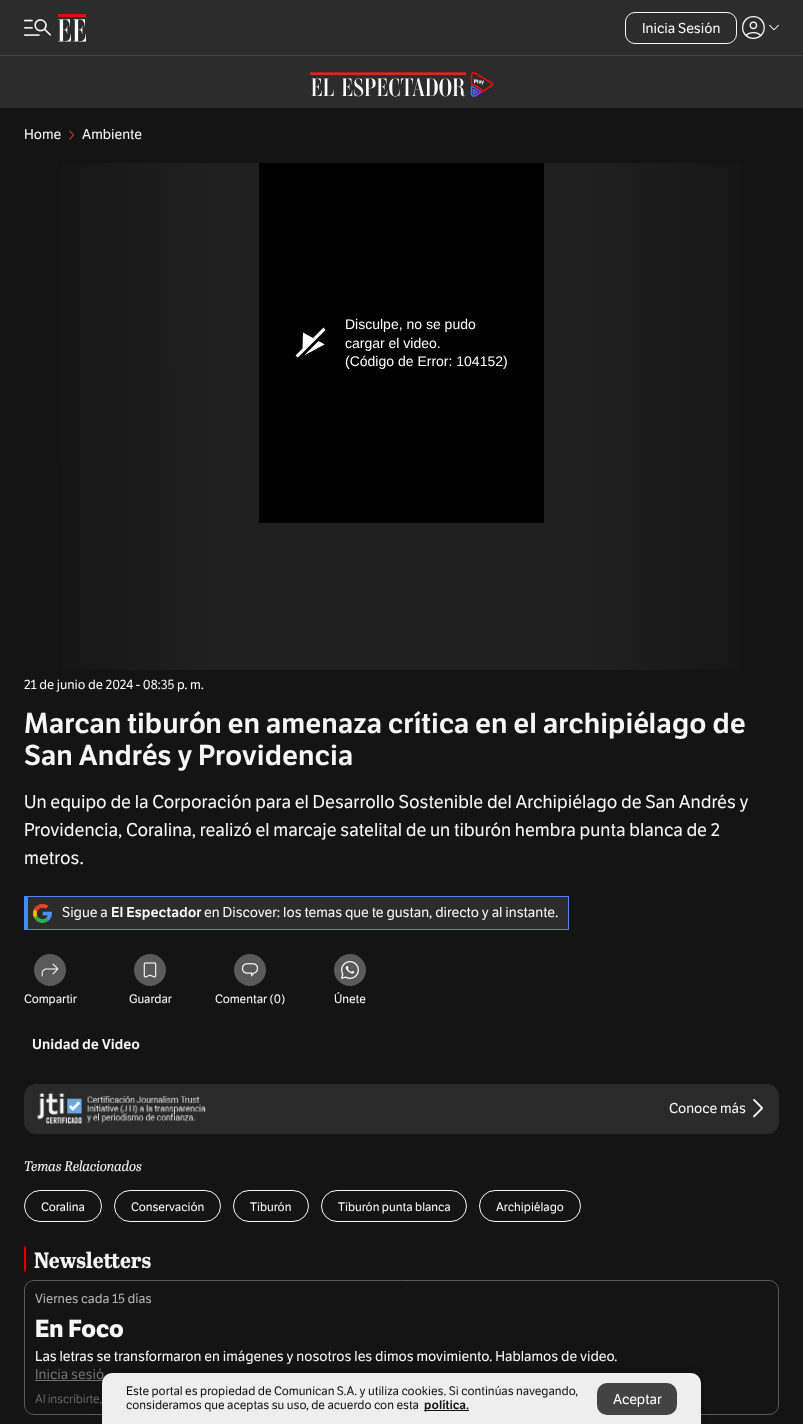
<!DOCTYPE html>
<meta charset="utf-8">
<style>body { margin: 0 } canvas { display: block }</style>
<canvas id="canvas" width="803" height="1424"></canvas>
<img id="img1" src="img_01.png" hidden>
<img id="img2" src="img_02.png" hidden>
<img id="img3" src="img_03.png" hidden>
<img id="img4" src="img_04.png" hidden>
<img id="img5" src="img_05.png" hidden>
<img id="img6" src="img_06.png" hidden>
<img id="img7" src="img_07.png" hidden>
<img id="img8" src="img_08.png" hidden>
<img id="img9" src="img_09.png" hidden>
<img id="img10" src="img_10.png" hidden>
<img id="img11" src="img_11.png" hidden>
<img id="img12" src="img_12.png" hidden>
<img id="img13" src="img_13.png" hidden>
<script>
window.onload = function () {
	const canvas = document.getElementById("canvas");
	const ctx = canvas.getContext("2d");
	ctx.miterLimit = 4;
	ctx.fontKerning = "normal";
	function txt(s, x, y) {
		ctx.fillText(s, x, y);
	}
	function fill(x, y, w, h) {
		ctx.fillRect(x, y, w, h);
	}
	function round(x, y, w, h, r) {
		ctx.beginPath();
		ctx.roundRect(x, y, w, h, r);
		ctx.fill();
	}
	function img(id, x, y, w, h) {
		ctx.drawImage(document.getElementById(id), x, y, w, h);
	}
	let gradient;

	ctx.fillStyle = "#141414";
	fill(0, 0, 803, 1424);
	ctx.fillStyle = "#2C2C2C";
	fill(0, 0, 803, 108);
	ctx.fillStyle = "#434343";
	fill(0, 55, 803, 1);
	img("img1", 24, 19, 27, 17);
	img("img2", 58, 14, 28, 28);
	ctx.beginPath();
	ctx.roundRect(625.5, 12.5, 111, 31, 9.5);
	ctx.strokeStyle = "#F7F7F7";
	ctx.stroke();
	img("img3", 742, 16, 23, 23);
	img("img4", 769, 24, 10, 7);
	img("img5", 310, 72, 183, 25);
	img("img6", 69, 130, 5, 10);
	gradient = ctx.createLinearGradient(779, 416, 24, 417);
	gradient.addColorStop(0, "#141414");
	gradient.addColorStop(0.25, "#202020");
	gradient.addColorStop(0.75, "#202020");
	gradient.addColorStop(1, "#141414");
	ctx.fillStyle = gradient;
	fill(63, 163, 677, 507);
	ctx.fillStyle = "#000000";
	fill(259, 163, 285, 360);
	ctx.fillStyle = "#FFFFFF";
	ctx.beginPath();
	ctx.moveTo(324.5, 344.5);
	ctx.lineTo(304, 355.5);
	ctx.lineTo(318.5, 341);
	ctx.bezierCurveTo(324, 344, 325.5, 344.5, 324.5, 344.5);
	ctx.closePath();
	ctx.moveTo(323.5, 327.5);
	ctx.lineTo(313, 338);
	ctx.lineTo(303, 332.5);
	ctx.lineTo(302.5, 348.5);
	ctx.lineTo(295.5, 355.5);
	ctx.lineTo(298, 357.5);
	ctx.lineTo(325.5, 330);
	ctx.closePath();
	ctx.fill();
	ctx.fillStyle = "#2C2C2C";
	fill(28, 897, 540, 32);
	ctx.fillStyle = "#4589FF";
	fill(24, 896, 545, 1);
	fill(568, 896, 1, 34);
	fill(24, 929, 545, 1);
	fill(24, 896, 4, 34);
	img("img7", 33, 904, 19, 19);
	ctx.fillStyle = "#5A5A5A";
	ctx.beginPath();
	ctx.arc(50, 970, 16, 0, Math.PI * 2);
	ctx.fill();
	img("img8", 41, 963, 18, 14);
	ctx.beginPath();
	ctx.arc(150, 970, 16, 0, Math.PI * 2);
	ctx.fill();
	img("img9", 143, 962, 14, 16);
	ctx.beginPath();
	ctx.arc(250, 970, 16, 0, Math.PI * 2);
	ctx.fill();
	img("img10", 241, 963, 18, 14);
	ctx.beginPath();
	ctx.arc(350, 970, 13, 0, Math.PI * 2);
	ctx.fill();
	ctx.strokeStyle = "#5A5A5A";
	ctx.lineWidth = 6;
	ctx.stroke();
	img("img11", 341, 961, 18, 18);
	ctx.fillStyle = "#2A2A2A";
	round(24, 1084, 755, 50, 12);
	img("img12", 37, 1093, 169, 31);
	img("img13", 753, 1099, 10, 19);
	ctx.beginPath();
	ctx.roundRect(24.5, 1190.5, 77, 31, 15.5);
	ctx.strokeStyle = "#F7F7F7";
	ctx.lineWidth = 1;
	ctx.stroke();
	ctx.beginPath();
	ctx.roundRect(114.5, 1190.5, 106, 31, 15.5);
	ctx.stroke();
	ctx.beginPath();
	ctx.roundRect(233.5, 1190.5, 75, 31, 15.5);
	ctx.stroke();
	ctx.beginPath();
	ctx.roundRect(321.5, 1190.5, 145, 31, 15.5);
	ctx.stroke();
	ctx.beginPath();
	ctx.roundRect(479.5, 1190.5, 101, 31, 15.5);
	ctx.stroke();
	ctx.fillStyle = "#E00000";
	ctx.beginPath();
	ctx.moveTo(24.5, 1246);
	ctx.lineTo(25.5, 1246);
	ctx.bezierCurveTo(26.5, 1248.5, 26, 1257, 26, 1259);
	ctx.bezierCurveTo(26, 1261, 26.5, 1269.5, 25.5, 1272);
	ctx.lineTo(24.5, 1272);
	ctx.lineTo(24, 1269);
	ctx.lineTo(24, 1249);
	ctx.closePath();
	ctx.fill();
	ctx.beginPath();
	ctx.roundRect(24.5, 1280.5, 754, 134, 9.5);
	ctx.strokeStyle = "#5A5A5A";
	ctx.stroke();
	ctx.fillStyle = "#707070";
	fill(35, 1380, 68, 1);
	ctx.fillStyle = "rgba(0, 0, 0, 0.16)";
	ctx.filter = "blur(3px)";
	ctx.beginPath();
	ctx.roundRect(102, 1372, 599, 51, 10);
	ctx.fill();
	ctx.filter = "none";
	ctx.font = "14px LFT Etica";
	ctx.fillStyle = "#F7F7F7";
	txt("Inicia Sesión", 642, 33);
	txt("Home", 24, 139);
	txt("Ambiente", 82, 139);
	ctx.font = "14px Liberation Sans";
	ctx.fillStyle = "#FFFFFF";
	txt("Disculpe, no se pudo", 345, 329);
	txt("cargar el video.", 345, 348);
	txt("(Código de Error: 104152)", 345, 366);
	ctx.font = "13px LFT Etica";
	ctx.fillStyle = "#F7F7F7";
	txt("21 de junio de 2024 - 08:35 p. m.", 24, 689);
	ctx.font = "600 28px LFT Etica";
	txt("Marcan tiburón en amenaza crítica en el archipiélago de", 24, 733);
	txt("San Andrés y Providencia", 24, 765);
	ctx.font = "18px LFT Etica";
	txt("Un equipo de la Corporación para el Desarrollo Sostenible del Archipiélago de San Andrés y", 24, 808);
	txt("Providencia, Coralina, realizó el marcaje satelital de un tiburón hembra punta blanca de 2", 24, 836);
	txt("metros.", 24, 864);
	ctx.font = "14px LFT Etica";
	txt("Sigue a", 62, 917);
	ctx.font = "600 14px LFT Etica";
	txt("El Espectador", 111, 917);
	ctx.font = "14px LFT Etica";
	txt("en Discover: los temas que te gustan, directo y al instante.", 204, 917);
	ctx.font = "12px LFT Etica";
	txt("Compartir", 24, 1003);
	txt("Guardar", 129, 1003);
	txt("Comentar (0)", 215, 1003);
	txt("Únete", 334, 1003);
	ctx.font = "600 14px LFT Etica";
	txt("Unidad de Video", 32, 1049);
	ctx.font = "14px LFT Etica";
	txt("Conoce más", 669, 1113);
	ctx.font = "italic 14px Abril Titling";
	txt("Temas Relacionados", 24, 1171);
	ctx.font = "12px LFT Etica";
	txt("Coralina", 41, 1211);
	txt("Conservación", 131, 1211);
	txt("Tiburón", 250, 1211);
	txt("Tiburón punta blanca", 338, 1211);
	txt("Archipiélago", 496, 1211);
	ctx.font = "bold 22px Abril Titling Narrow";
	txt("Newsletters", 34, 1268);
	ctx.font = "13px LFT Etica";
	ctx.fillStyle = "#B5B5B5";
	txt("Viernes cada 15 días", 35, 1303);
	ctx.font = "bold 24px LFT Etica";
	ctx.fillStyle = "#F7F7F7";
	txt("En Foco", 35, 1337);
	ctx.font = "14px LFT Etica";
	txt("Las letras se transformaron en imágenes y nosotros les dimos movimiento. Hablamos de video.", 35, 1361);
	ctx.fillStyle = "#707070";
	txt("Inicia sesió", 35, 1379);
	ctx.font = "12px 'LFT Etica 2'";
	txt("Al inscribirte,", 35, 1403);
	ctx.fillStyle = "#EEEEEE";
	ctx.beginPath();
	ctx.roundRect(102, 1373, 599, 51, [10, 10, 0, 0]);
	ctx.fill();
	ctx.font = "12px LFT Etica";
	ctx.fillStyle = "#141414";
	txt("Este portal es propiedad de Comunican S.A. y utiliza cookies. Si continúas navegando,", 126, 1395);
	txt("consideramos que aceptas su uso, de acuerdo con esta", 126, 1409);
	fill(424, 1410, 45, 1);
	ctx.font = "600 12px LFT Etica";
	txt("política.", 424, 1409);
	ctx.fillStyle = "#434343";
	round(597, 1383, 80, 32, 10);
	ctx.font = "14px LFT Etica";
	ctx.fillStyle = "#FFFFFF";
	txt("Aceptar", 613, 1404);
};
</script>
